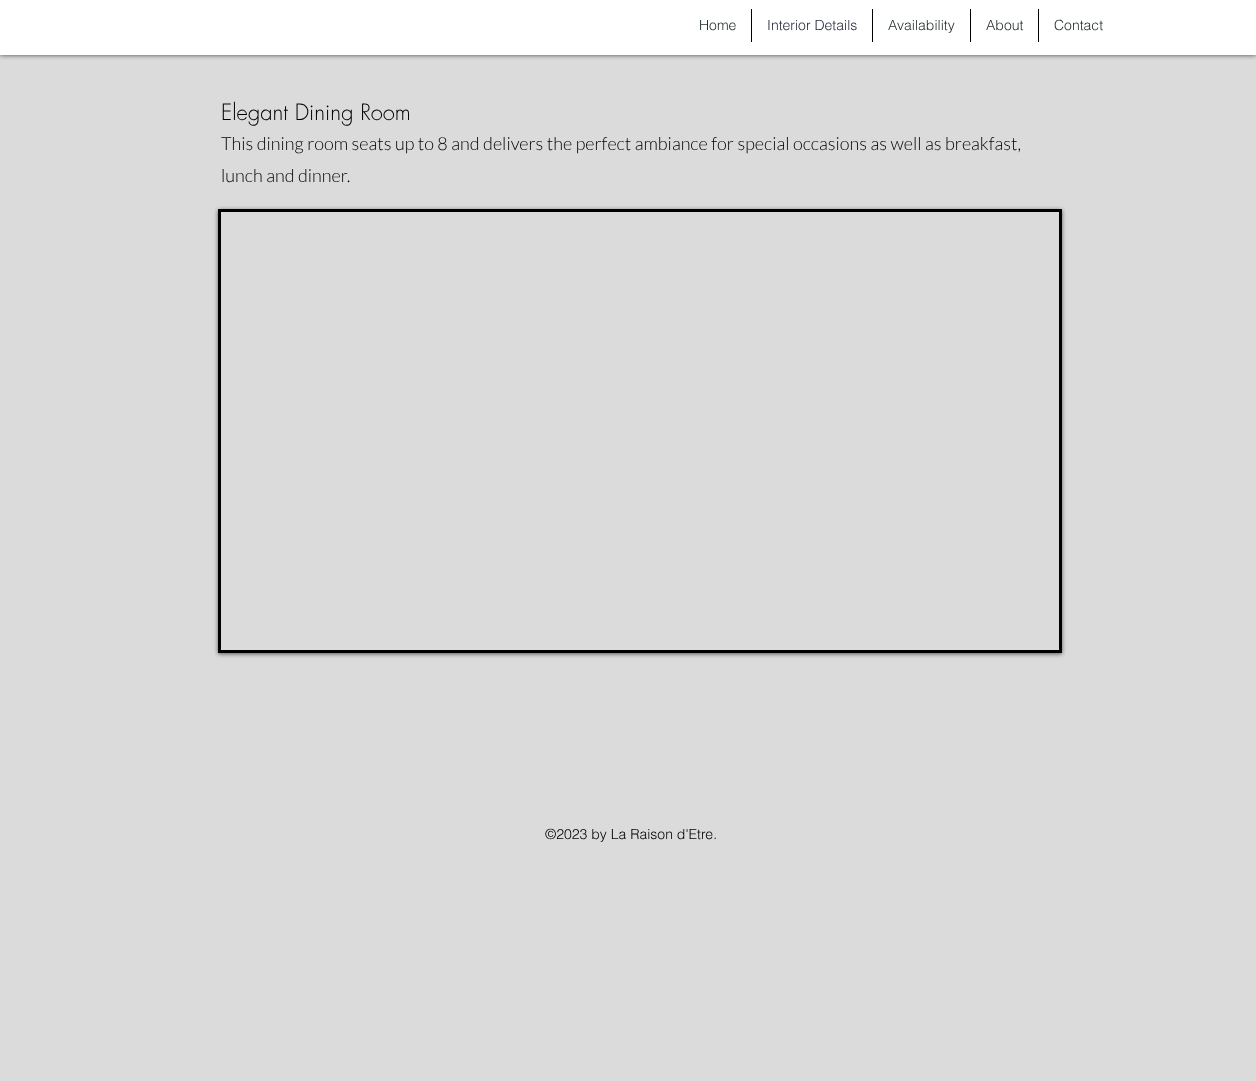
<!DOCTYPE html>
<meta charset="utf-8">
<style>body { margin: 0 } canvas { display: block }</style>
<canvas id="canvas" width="1256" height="1081"></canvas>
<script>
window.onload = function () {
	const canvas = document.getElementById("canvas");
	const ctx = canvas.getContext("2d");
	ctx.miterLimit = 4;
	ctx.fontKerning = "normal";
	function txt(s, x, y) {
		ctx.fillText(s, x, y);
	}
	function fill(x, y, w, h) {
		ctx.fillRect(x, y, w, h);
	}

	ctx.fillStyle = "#DBDBDB";
	fill(0, 0, 1256, 1081);
	ctx.fillStyle = "rgba(0, 0, 0, 0.7)";
	ctx.filter = "blur(2.5px)";
	ctx.beginPath();
	ctx.rect(0, 0, 1256, 55);
	ctx.fill();
	ctx.filter = "none";
	ctx.fillStyle = "#FFFFFF";
	fill(0, 0, 1256, 55);
	ctx.fillStyle = "#000000";
	fill(751, 9, 1, 33);
	fill(872, 9, 1, 33);
	fill(970, 9, 1, 33);
	fill(1038, 9, 1, 33);
	ctx.save();
	ctx.beginPath();
	ctx.moveTo(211, 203);
	ctx.lineTo(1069, 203);
	ctx.lineTo(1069, 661);
	ctx.lineTo(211, 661);
	ctx.closePath();
	ctx.moveTo(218, 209);
	ctx.lineTo(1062, 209);
	ctx.lineTo(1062, 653);
	ctx.lineTo(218, 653);
	ctx.closePath();
	ctx.clip("evenodd");
	ctx.fillStyle = "rgba(0, 0, 0, 0.6)";
	ctx.filter = "blur(2px)";
	ctx.beginPath();
	ctx.rect(218, 210, 844, 444);
	ctx.fill();
	ctx.filter = "none";
	ctx.restore();
	ctx.strokeStyle = "#000000";
	ctx.lineWidth = 3;
	ctx.strokeRect(219.5, 210.5, 841, 441);
	ctx.font = "300 14px helvetica";
	ctx.fillStyle = "#1D2927";
	txt("Home", 699, 30);
	ctx.fillStyle = "#262B3B";
	txt("Interior Details", 767, 30);
	ctx.fillStyle = "#1D2927";
	txt("Availability", 888, 30);
	txt("About", 986, 30);
	txt("Contact", 1054, 30);
	ctx.font = "300 22px futura";
	ctx.fillStyle = "#000000";
	txt("Elegant Dining Room", 221, 120);
	ctx.font = "300 18px Lato";
	txt("This dining room seats up to 8 and delivers the perfect ambiance for special occasions as well as breakfast,", 221, 150);
	txt("lunch and dinner.", 221, 182);
	ctx.font = "300 14px helvetica";
	txt("©2023 by La Raison d'Etre.", 545, 839);
};
</script>
